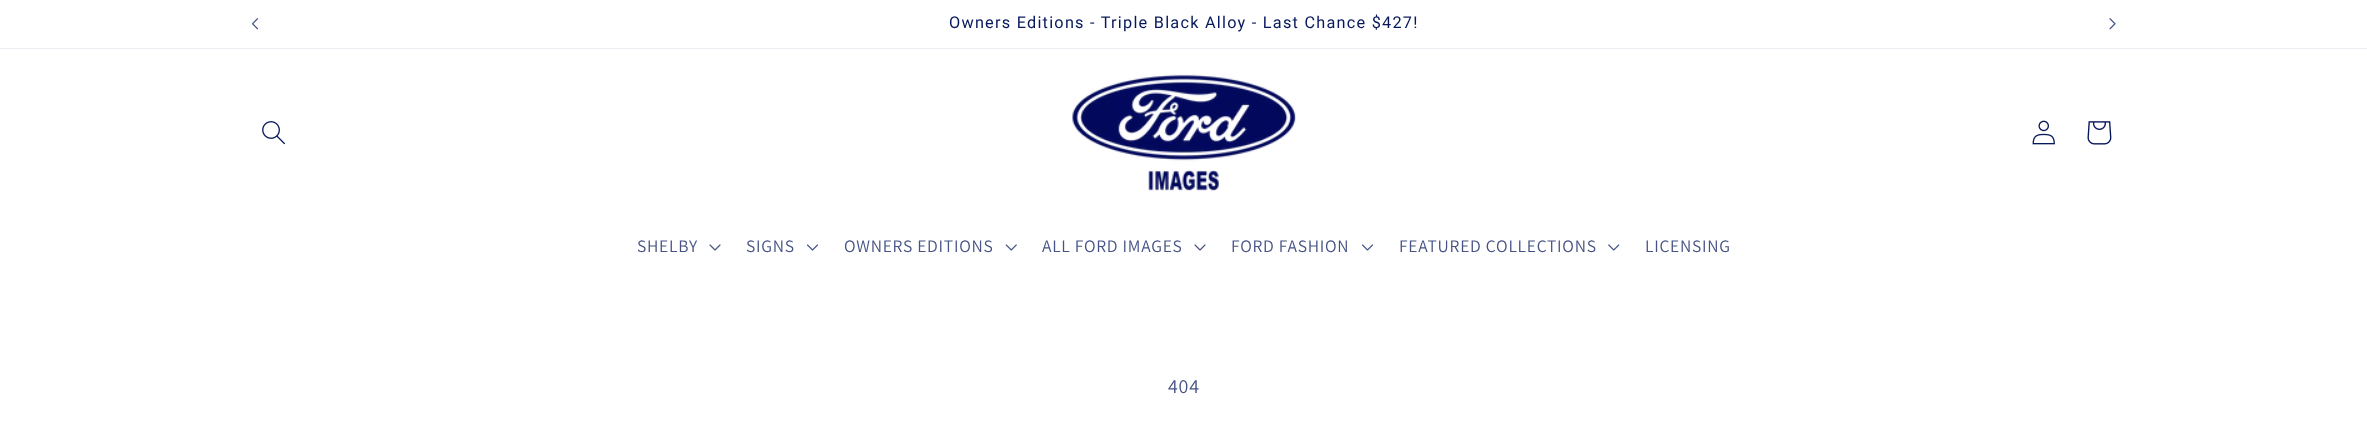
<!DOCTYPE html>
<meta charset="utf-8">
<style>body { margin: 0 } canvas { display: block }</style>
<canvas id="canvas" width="2367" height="428"></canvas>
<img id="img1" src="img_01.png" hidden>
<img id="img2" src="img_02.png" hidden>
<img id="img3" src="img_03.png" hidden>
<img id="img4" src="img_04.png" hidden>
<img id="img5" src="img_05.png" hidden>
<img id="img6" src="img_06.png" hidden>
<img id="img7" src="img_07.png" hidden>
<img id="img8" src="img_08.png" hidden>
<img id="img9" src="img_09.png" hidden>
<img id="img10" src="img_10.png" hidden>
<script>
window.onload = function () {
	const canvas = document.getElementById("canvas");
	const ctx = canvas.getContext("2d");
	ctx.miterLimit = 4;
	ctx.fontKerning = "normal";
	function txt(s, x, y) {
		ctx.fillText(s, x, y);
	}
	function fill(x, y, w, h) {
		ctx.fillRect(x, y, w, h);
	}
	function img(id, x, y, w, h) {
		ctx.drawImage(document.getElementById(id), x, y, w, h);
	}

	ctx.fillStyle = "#FFFFFF";
	fill(0, 0, 2367, 428);
	ctx.fillStyle = "#EBEDF2";
	fill(0, 48, 2367, 1);
	img("img1", 252, 18, 6, 12);
	img("img2", 2109, 18, 7, 12);
	img("img3", 262, 121, 23, 24);
	img("img4", 1072, 74, 224, 117);
	img("img5", 2032, 120, 23, 25);
	img("img6", 2087, 121, 25, 24);
	img("img7", 709, 244, 12, 7);
	img("img8", 807, 244, 11, 7);
	img("img9", 1005, 244, 12, 7);
	img("img7", 1194, 244, 12, 7);
	img("img8", 1362, 244, 11, 7);
	img("img10", 1608, 244, 12, 7);
	ctx.letterSpacing = "1.25px";
	ctx.font = "16.25px Roboto";
	ctx.fillStyle = "#07185B";
	txt("Owners Editions - Triple Black Alloy - Last Chance $427!", 949, 28);
	ctx.letterSpacing = "0.75px";
	ctx.font = "17.5px Assistant";
	ctx.fillStyle = "#455284";
	txt("SHELBY", 637, 252);
	txt("SIGNS", 746, 252);
	txt("OWNERS EDITIONS", 844, 252);
	txt("ALL FORD IMAGES", 1042, 252);
	txt("FORD FASHION", 1231, 252);
	txt("FEATURED COLLECTIONS", 1399, 252);
	txt("LICENSING", 1645, 252);
	ctx.font = "20px Assistant";
	txt("404", 1168, 393);
};
</script>
